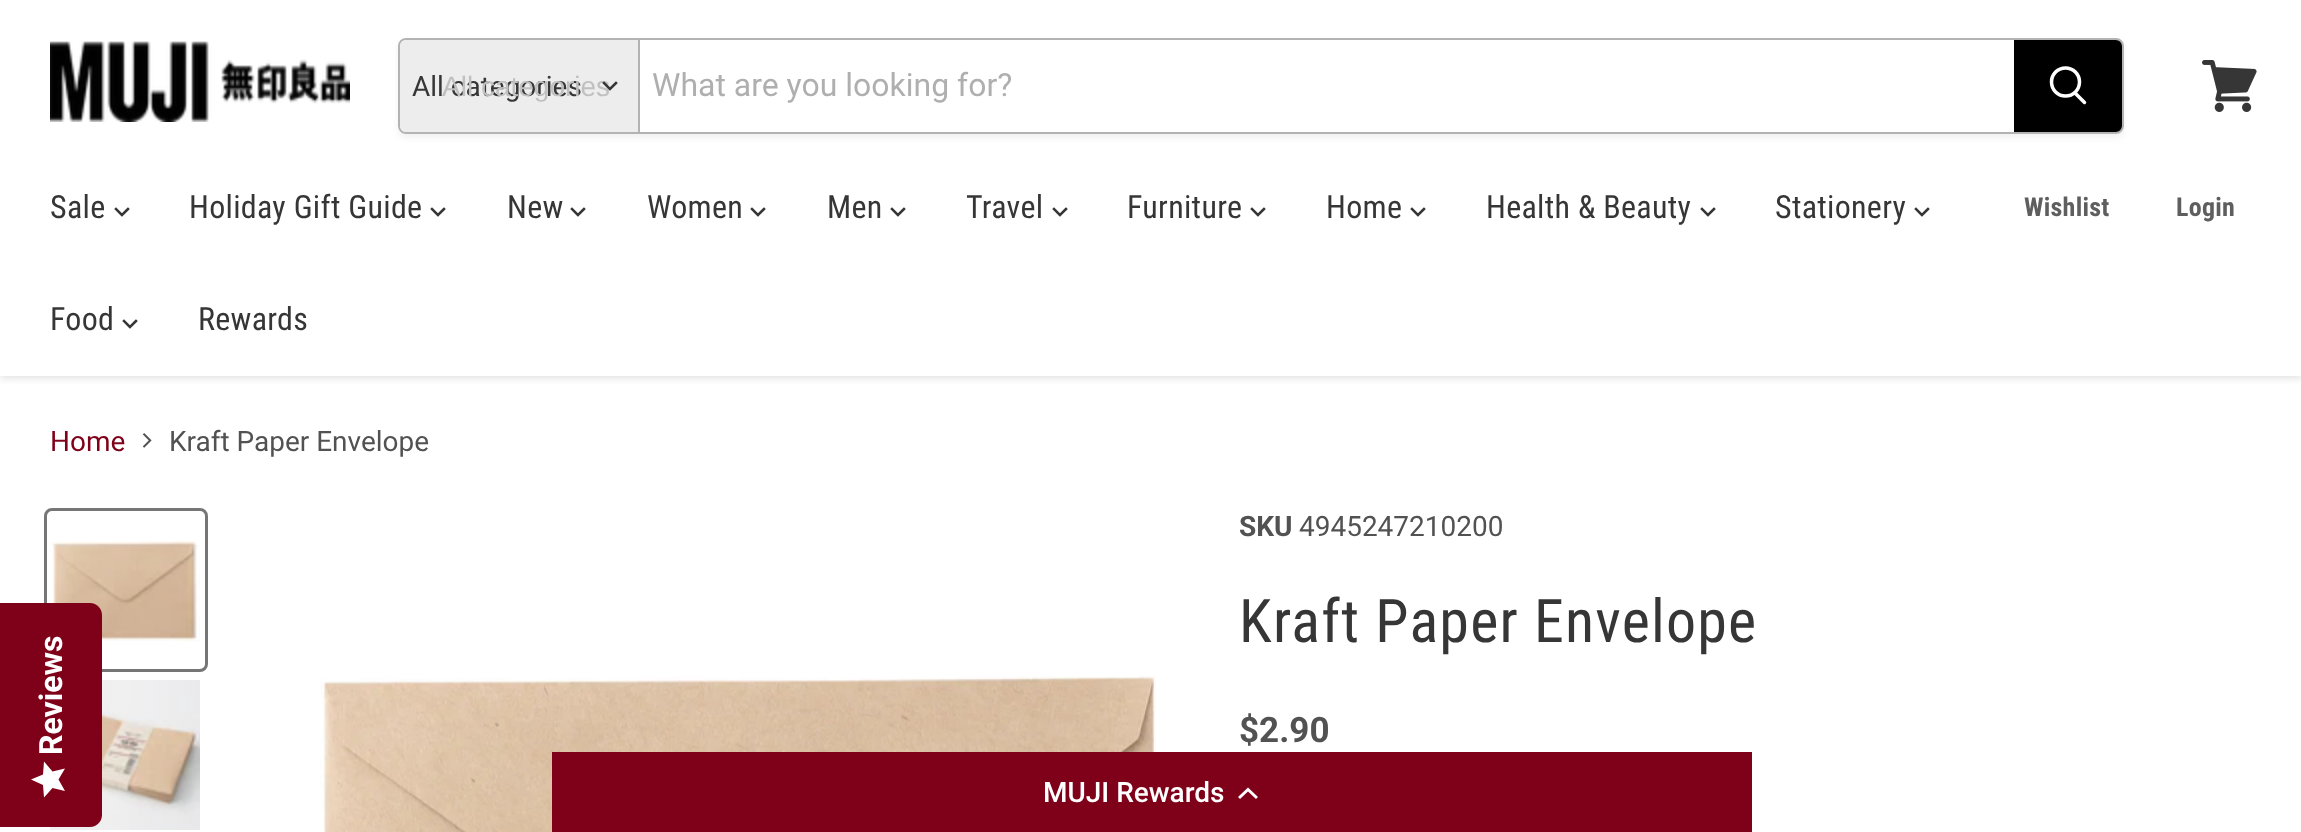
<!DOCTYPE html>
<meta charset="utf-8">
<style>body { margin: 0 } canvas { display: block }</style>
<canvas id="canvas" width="2301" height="832"></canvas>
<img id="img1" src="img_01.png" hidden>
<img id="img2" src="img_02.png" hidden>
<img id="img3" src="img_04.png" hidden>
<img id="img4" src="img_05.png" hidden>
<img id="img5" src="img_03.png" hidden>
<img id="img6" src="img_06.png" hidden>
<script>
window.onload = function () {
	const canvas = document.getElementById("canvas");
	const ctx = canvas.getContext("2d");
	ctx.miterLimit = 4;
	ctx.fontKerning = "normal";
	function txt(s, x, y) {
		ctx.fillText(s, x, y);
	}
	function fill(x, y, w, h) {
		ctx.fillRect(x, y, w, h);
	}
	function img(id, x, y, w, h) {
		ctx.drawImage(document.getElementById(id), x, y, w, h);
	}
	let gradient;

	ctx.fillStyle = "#FFFFFF";
	fill(0, 0, 2301, 832);
	ctx.save();
	ctx.beginPath();
	ctx.rect(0, 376, 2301, 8);
	ctx.clip();
	ctx.fillStyle = "rgba(128, 128, 128, 0.25)";
	ctx.filter = "blur(4px)";
	ctx.beginPath();
	ctx.rect(0, 2, 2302, 376);
	ctx.fill();
	ctx.filter = "none";
	ctx.restore();
	img("img1", 50, 41, 300, 81);
	ctx.save();
	ctx.beginPath();
	ctx.moveTo(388, 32);
	ctx.lineTo(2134, 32);
	ctx.lineTo(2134, 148);
	ctx.lineTo(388, 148);
	ctx.closePath();
	ctx.moveTo(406, 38);
	ctx.lineTo(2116, 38);
	ctx.bezierCurveTo(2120.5, 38, 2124, 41.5, 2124, 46);
	ctx.lineTo(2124, 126);
	ctx.bezierCurveTo(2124, 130.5, 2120.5, 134, 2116, 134);
	ctx.lineTo(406, 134);
	ctx.bezierCurveTo(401.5, 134, 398, 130.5, 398, 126);
	ctx.lineTo(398, 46);
	ctx.bezierCurveTo(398, 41.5, 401.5, 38, 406, 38);
	ctx.closePath();
	ctx.clip("evenodd");
	ctx.fillStyle = "rgba(128, 128, 128, 0.11)";
	ctx.filter = "blur(3px)";
	ctx.beginPath();
	ctx.roundRect(398, 42, 1726, 96, 8);
	ctx.fill();
	ctx.filter = "none";
	ctx.restore();
	ctx.beginPath();
	ctx.roundRect(399, 39, 1724, 94, 7);
	ctx.strokeStyle = "#B3B3B3";
	ctx.lineWidth = 2;
	ctx.stroke();
	ctx.fillStyle = "#EDEDED";
	ctx.beginPath();
	ctx.roundRect(400, 40, 238, 92, [6, 0, 0, 6]);
	ctx.fill();
	ctx.fillStyle = "#B3B3B3";
	fill(638, 40, 2, 92);
	ctx.fillStyle = "#000000";
	ctx.beginPath();
	ctx.roundRect(2015, 41, 106, 90, [0, 5, 5, 0]);
	ctx.fill();
	ctx.strokeStyle = "#000000";
	ctx.stroke();
	ctx.beginPath();
	ctx.moveTo(2084.5, 102.5);
	ctx.lineTo(2075, 93);
	ctx.strokeStyle = "#FFFFFF";
	ctx.lineWidth = 3.5;
	ctx.lineCap = "round";
	ctx.stroke();
	ctx.beginPath();
	ctx.arc(2065.5, 82, 14, 0, Math.PI * 2);
	ctx.stroke();
	img("img2", 2202, 60, 55, 52);
	ctx.beginPath();
	ctx.moveTo(122, 215);
	ctx.lineTo(128, 209);
	ctx.moveTo(122, 215);
	ctx.lineTo(116, 209);
	ctx.strokeStyle = "#363636";
	ctx.lineWidth = 2.5;
	ctx.lineCap = "square";
	ctx.stroke();
	ctx.beginPath();
	ctx.moveTo(438, 215);
	ctx.lineTo(444, 209);
	ctx.moveTo(438, 215);
	ctx.lineTo(432, 209);
	ctx.stroke();
	ctx.beginPath();
	ctx.moveTo(578, 215);
	ctx.lineTo(584, 209);
	ctx.moveTo(578, 215);
	ctx.lineTo(572, 209);
	ctx.stroke();
	ctx.beginPath();
	ctx.moveTo(758, 215);
	ctx.lineTo(764, 209);
	ctx.moveTo(758, 215);
	ctx.lineTo(752, 209);
	ctx.stroke();
	ctx.beginPath();
	ctx.moveTo(898, 215);
	ctx.lineTo(904, 209);
	ctx.moveTo(898, 215);
	ctx.lineTo(892, 209);
	ctx.stroke();
	ctx.beginPath();
	ctx.moveTo(1060, 215);
	ctx.lineTo(1066, 209);
	ctx.moveTo(1060, 215);
	ctx.lineTo(1054, 209);
	ctx.stroke();
	ctx.beginPath();
	ctx.moveTo(1258, 215);
	ctx.lineTo(1264, 209);
	ctx.moveTo(1258, 215);
	ctx.lineTo(1252, 209);
	ctx.stroke();
	ctx.beginPath();
	ctx.moveTo(1418, 215);
	ctx.lineTo(1424, 209);
	ctx.moveTo(1418, 215);
	ctx.lineTo(1412, 209);
	ctx.stroke();
	ctx.beginPath();
	ctx.moveTo(1708, 215);
	ctx.lineTo(1714, 209);
	ctx.moveTo(1708, 215);
	ctx.lineTo(1702, 209);
	ctx.stroke();
	ctx.beginPath();
	ctx.moveTo(1922, 215);
	ctx.lineTo(1928, 209);
	ctx.moveTo(1922, 215);
	ctx.lineTo(1916, 209);
	ctx.stroke();
	ctx.beginPath();
	ctx.moveTo(130, 327);
	ctx.lineTo(136, 321);
	ctx.moveTo(130, 327);
	ctx.lineTo(124, 321);
	ctx.stroke();
	ctx.beginPath();
	ctx.roundRect(45.5, 509.5, 161, 161, 6.5);
	ctx.strokeStyle = "#767676";
	ctx.lineWidth = 3;
	ctx.stroke();
	img("img3", 50, 541, 150, 101);
	img("img4", 50, 680, 150, 150);
	ctx.fillStyle = "#7F0019";
	ctx.beginPath();
	ctx.moveTo(0, 827);
	ctx.lineTo(0, 603);
	ctx.lineTo(90, 603);
	ctx.bezierCurveTo(97, 603, 102, 609, 102, 615);
	ctx.lineTo(102, 815);
	ctx.bezierCurveTo(102, 821, 97, 827, 90, 827);
	ctx.closePath();
	ctx.fill();
	gradient = ctx.createLinearGradient(31, 798, 31, 762);
	gradient.addColorStop(1, "#FFFFFF");
	gradient.addColorStop(1, "#EAEAEA");
	ctx.fillStyle = gradient;
	ctx.beginPath();
	ctx.moveTo(58.5, 779.5);
	ctx.lineTo(65, 768.5);
	ctx.lineTo(52.5, 771.5);
	ctx.lineTo(44, 761.5);
	ctx.lineTo(43, 774.5);
	ctx.lineTo(31, 779.5);
	ctx.lineTo(43, 785);
	ctx.lineTo(44, 797.5);
	ctx.lineTo(52.5, 788);
	ctx.lineTo(65, 791);
	ctx.closePath();
	ctx.fill();
	img("img5", 142, 433, 10, 15);
	img("img6", 320, 676, 836, 156);
	ctx.fillStyle = "#7F0019";
	fill(552, 752, 1200, 80);
	ctx.fillStyle = "#FFFFFF";
	ctx.beginPath();
	ctx.moveTo(1248, 791.5);
	ctx.lineTo(1240, 799);
	ctx.lineTo(1238, 797);
	ctx.lineTo(1248, 787.5);
	ctx.lineTo(1258, 797);
	ctx.lineTo(1256, 799);
	ctx.closePath();
	ctx.fill();
	ctx.font = "28px Roboto";
	ctx.fillStyle = "#363636";
	txt("All categories", 412, 96);
	ctx.font = "28px Liberation Sans";
	ctx.fillStyle = "#C0C0C0";
	txt("All categories", 442, 96);
	ctx.beginPath();
	ctx.moveTo(610, 89);
	ctx.lineTo(616, 83);
	ctx.moveTo(610, 89);
	ctx.lineTo(604, 83);
	ctx.strokeStyle = "#363636";
	ctx.lineWidth = 2.5;
	ctx.stroke();
	ctx.font = "32px Roboto";
	ctx.fillStyle = "#AFAFAF";
	txt("What are you looking for?", 652, 96);
	ctx.letterSpacing = "0.3px";
	ctx.font = "32px Roboto Condensed";
	ctx.fillStyle = "#363636";
	txt("Sale", 50, 218);
	txt("Holiday Gift Guide", 189, 218);
	txt("New", 507, 218);
	txt("Women", 647, 218);
	txt("Men", 827, 218);
	txt("Travel", 966, 218);
	txt("Furniture", 1127, 218);
	txt("Home", 1326, 218);
	txt("Health & Beauty", 1486, 218);
	txt("Stationery", 1775, 218);
	txt("Food", 50, 330);
	txt("Rewards", 198, 330);
	ctx.letterSpacing = "0.25px";
	ctx.font = "bold 26px Roboto Condensed";
	ctx.fillStyle = "#5E5E5E";
	txt("Wishlist", 2024, 216);
	txt("Login", 2176, 216);
	ctx.letterSpacing = "0px";
	ctx.font = "bold 32px Roboto";
	ctx.fillStyle = "#FFFFFF";
	ctx.save();
	ctx.translate(62, 755);
	ctx.rotate(-90 * Math.PI / 180);
	ctx.fillText("Reviews", 0, 0);
	ctx.restore();
	ctx.font = "28px Roboto";
	ctx.fillStyle = "#7F0019";
	txt("Home", 50, 451);
	ctx.fillStyle = "#525252";
	txt("Kraft Paper Envelope", 169, 451);
	ctx.font = "bold 28px Roboto";
	txt("SKU", 1239, 536);
	ctx.font = "28px Roboto";
	txt("4945247210200", 1299, 536);
	ctx.letterSpacing = "1.2px";
	ctx.font = "60px Roboto Condensed";
	ctx.fillStyle = "#363636";
	txt("Kraft Paper Envelope", 1239, 642);
	ctx.letterSpacing = "0px";
	ctx.font = "bold 35px Roboto";
	ctx.fillStyle = "#525252";
	txt("$2.90", 1239, 742);
	ctx.font = "500 28px Roboto";
	ctx.fillStyle = "#FFFFFF";
	txt("MUJI Rewards", 1043, 802);
};
</script>
